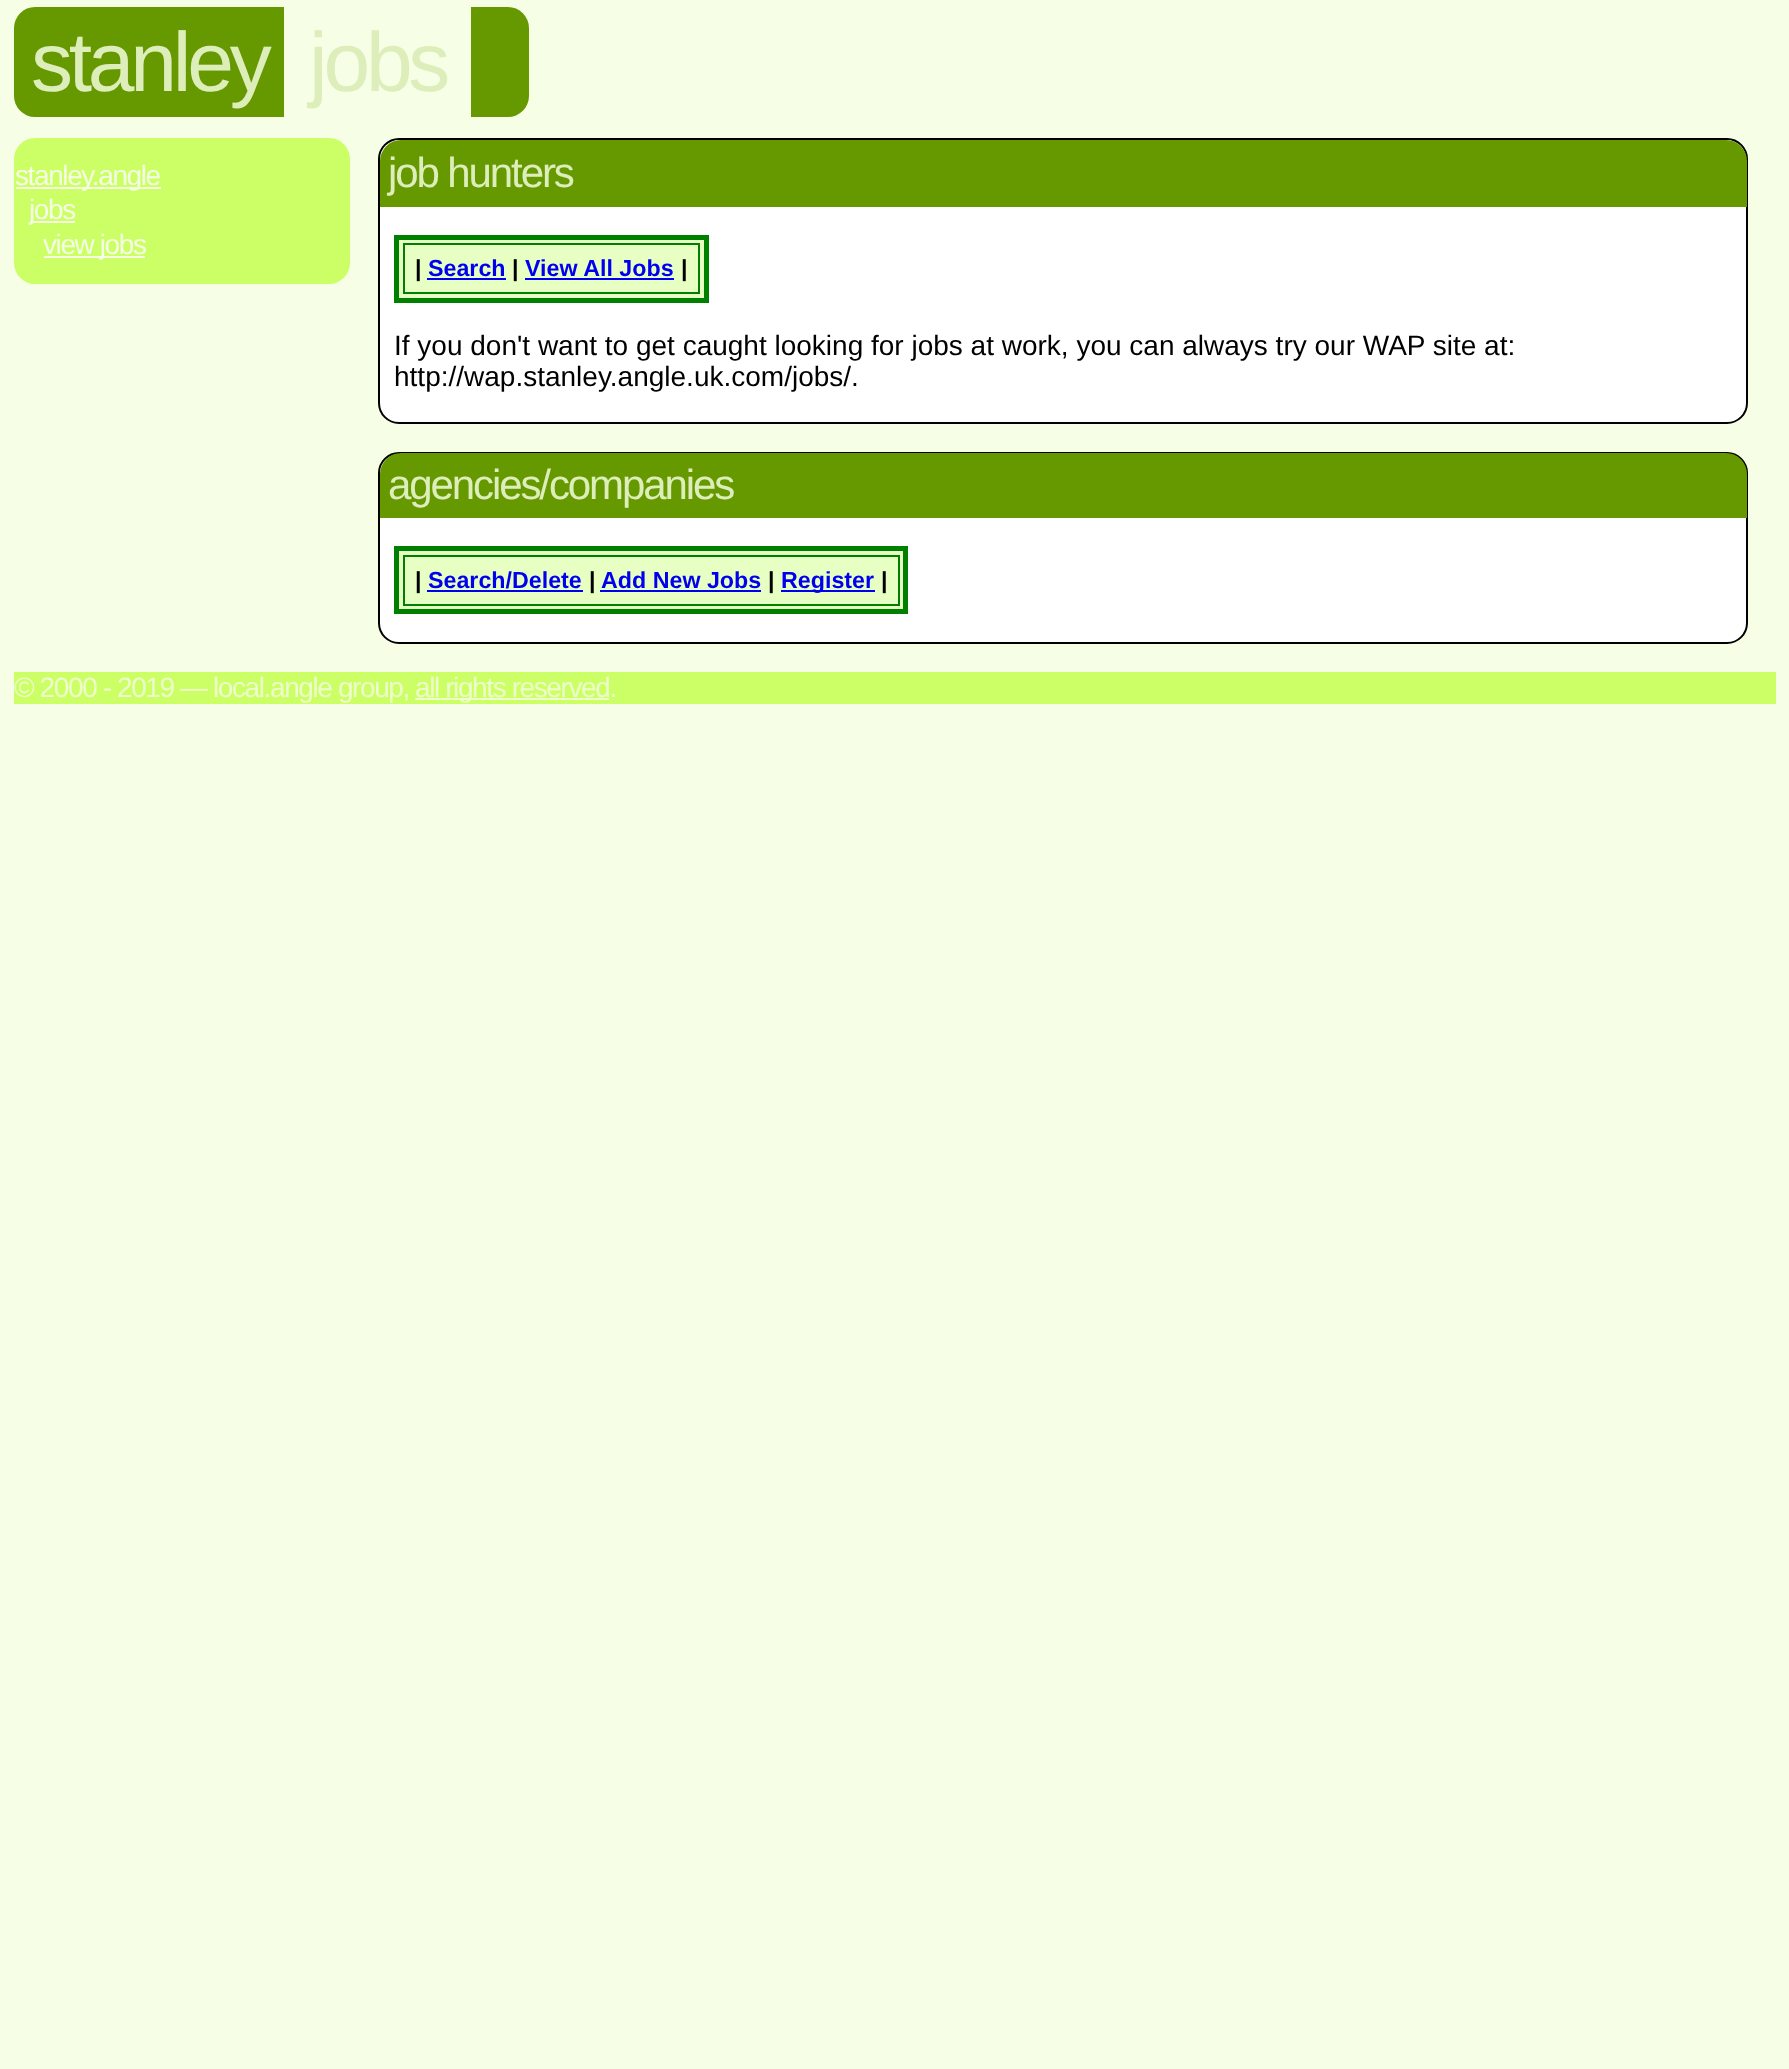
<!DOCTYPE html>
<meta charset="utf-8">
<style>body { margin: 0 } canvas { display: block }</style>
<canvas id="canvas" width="1789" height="2069"></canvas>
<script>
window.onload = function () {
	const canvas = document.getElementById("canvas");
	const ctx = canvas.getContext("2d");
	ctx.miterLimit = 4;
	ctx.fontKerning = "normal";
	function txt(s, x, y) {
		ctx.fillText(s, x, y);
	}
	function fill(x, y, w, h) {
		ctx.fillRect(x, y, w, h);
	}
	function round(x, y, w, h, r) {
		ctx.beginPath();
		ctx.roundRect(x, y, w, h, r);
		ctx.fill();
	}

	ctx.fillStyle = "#F6FFE6";
	fill(0, 0, 1789, 2069);
	ctx.fillStyle = "#669900";
	ctx.beginPath();
	ctx.roundRect(14, 7, 270, 110, [21, 0, 0, 21]);
	ctx.fill();
	ctx.beginPath();
	ctx.roundRect(471, 7, 58, 110, [0, 21, 21, 0]);
	ctx.fill();
	ctx.fillStyle = "#CCFF66";
	round(14, 138, 336, 146, 21);
	ctx.fillStyle = "#F6FFE6";
	fill(16, 187, 145, 2);
	fill(30, 221, 45, 2);
	fill(44, 256, 101, 2);
	ctx.fillStyle = "#FFFFFF";
	ctx.beginPath();
	ctx.roundRect(379, 139, 1368, 284, 20);
	ctx.fill();
	ctx.strokeStyle = "#000000";
	ctx.lineWidth = 2;
	ctx.stroke();
	ctx.fillStyle = "#669900";
	ctx.beginPath();
	ctx.roundRect(380, 140, 1367, 67, [21, 21, 0, 0]);
	ctx.fill();
	ctx.fillStyle = "#E8FFC4";
	ctx.beginPath();
	ctx.rect(396.5, 237.5, 310, 63);
	ctx.fill();
	ctx.strokeStyle = "#008000";
	ctx.lineWidth = 5;
	ctx.stroke();
	ctx.lineWidth = 2;
	ctx.strokeRect(404, 244, 295, 49);
	ctx.fillStyle = "#0000EE";
	fill(427, 278, 79, 2);
	fill(525, 278, 149, 2);
	ctx.fillStyle = "#FFFFFF";
	ctx.beginPath();
	ctx.roundRect(379, 453, 1368, 190, 20);
	ctx.fill();
	ctx.strokeStyle = "#000000";
	ctx.stroke();
	ctx.fillStyle = "#669900";
	ctx.beginPath();
	ctx.roundRect(380, 453, 1367, 65, [21, 21, 0, 0]);
	ctx.fill();
	ctx.fillStyle = "#E8FFC4";
	ctx.beginPath();
	ctx.rect(396.5, 548.5, 509, 63);
	ctx.fill();
	ctx.strokeStyle = "#008000";
	ctx.lineWidth = 5;
	ctx.stroke();
	ctx.lineWidth = 2;
	ctx.strokeRect(404, 556, 495, 49);
	ctx.fillStyle = "#0000EE";
	fill(427, 590, 156, 2);
	fill(600, 590, 161, 2);
	fill(781, 590, 94, 2);
	ctx.fillStyle = "#CCFF66";
	fill(14, 672, 1762, 32);
	ctx.fillStyle = "#EEFFCC";
	fill(415, 698, 194, 2);
	ctx.letterSpacing = "-4.25px";
	ctx.font = "84px Liberation Sans";
	ctx.fillStyle = "#DDEEBB";
	txt("stanley", 31, 91);
	txt("jobs", 309, 91);
	ctx.letterSpacing = "-1.4px";
	ctx.font = "28px Liberation Sans";
	ctx.fillStyle = "#F6FFE6";
	txt("stanley.angle", 15, 185);
	txt("jobs", 29, 219);
	txt("view jobs", 43, 254);
	ctx.letterSpacing = "-2.1px";
	ctx.font = "42px Liberation Sans";
	ctx.fillStyle = "#DDEEBB";
	txt("job hunters", 388, 187);
	ctx.letterSpacing = "0px";
	ctx.font = "bold 23.25px Liberation Sans";
	ctx.fillStyle = "#000000";
	txt("|", 415, 276);
	ctx.fillStyle = "#0000EE";
	txt("Search", 428, 276);
	ctx.fillStyle = "#000000";
	txt("|", 512, 276);
	ctx.fillStyle = "#0000EE";
	txt("View All Jobs", 525, 276);
	ctx.fillStyle = "#000000";
	txt("|", 681, 276);
	ctx.font = "28px Liberation Sans";
	txt("If you don't want to get caught looking for jobs at work, you can always try our WAP site at:", 394, 355);
	txt("http://wap.stanley.angle.uk.com/jobs/.", 394, 386);
	ctx.letterSpacing = "-2.1px";
	ctx.font = "42px Liberation Sans";
	ctx.fillStyle = "#DDEEBB";
	txt("agencies/companies", 388, 499);
	ctx.letterSpacing = "0px";
	ctx.font = "bold 23.25px Liberation Sans";
	ctx.fillStyle = "#000000";
	txt("|", 415, 588);
	ctx.fillStyle = "#0000EE";
	txt("Search/Delete", 428, 588);
	ctx.fillStyle = "#000000";
	txt("|", 589, 588);
	ctx.fillStyle = "#0000EE";
	txt("Add New Jobs", 601, 588);
	ctx.fillStyle = "#000000";
	txt("|", 768, 588);
	ctx.fillStyle = "#0000EE";
	txt("Register", 781, 588);
	ctx.fillStyle = "#000000";
	txt("|", 881, 588);
	ctx.letterSpacing = "-1.4px";
	ctx.font = "28px Liberation Sans";
	ctx.fillStyle = "#EEFFCC";
	txt("© 2000 - 2019 — local.angle group,", 14, 697);
	txt("all rights reserved.", 415, 697);
};
</script>
